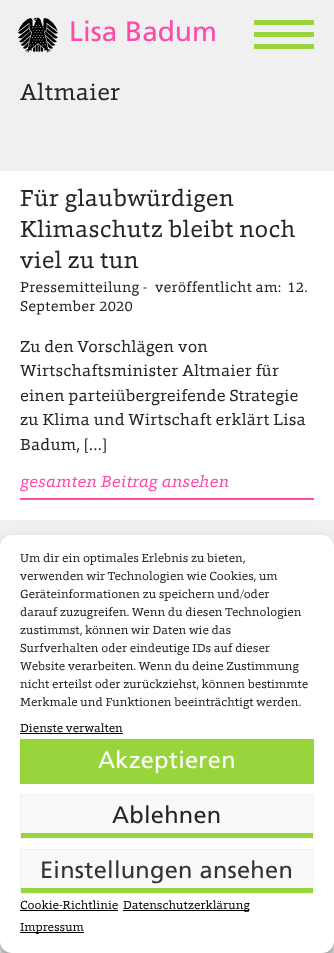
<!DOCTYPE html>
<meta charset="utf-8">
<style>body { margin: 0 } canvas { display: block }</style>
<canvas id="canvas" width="334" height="953"></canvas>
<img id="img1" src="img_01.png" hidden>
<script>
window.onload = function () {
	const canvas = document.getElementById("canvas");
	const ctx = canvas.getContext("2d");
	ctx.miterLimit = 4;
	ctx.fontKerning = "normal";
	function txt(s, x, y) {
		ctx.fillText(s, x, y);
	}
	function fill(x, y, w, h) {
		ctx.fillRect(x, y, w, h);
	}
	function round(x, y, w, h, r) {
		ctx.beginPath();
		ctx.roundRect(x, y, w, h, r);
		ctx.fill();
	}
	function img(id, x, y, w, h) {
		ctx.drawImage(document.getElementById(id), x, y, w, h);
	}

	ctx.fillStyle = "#F0F0F0";
	fill(0, 0, 334, 953);
	img("img1", 18, 17, 40, 36);
	ctx.fillStyle = "#98D53D";
	fill(254, 20, 60, 5);
	fill(254, 32, 60, 5);
	fill(254, 44, 60, 5);
	ctx.fillStyle = "#FFFFFF";
	fill(0, 171, 334, 349);
	ctx.fillStyle = "#FF4AA9";
	fill(20, 498, 294, 2);
	ctx.fillStyle = "rgba(0, 0, 0, 0.23)";
	ctx.filter = "blur(3px)";
	ctx.beginPath();
	ctx.roundRect(0, 541, 334, 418, 12);
	ctx.fill();
	ctx.filter = "none";
	ctx.fillStyle = "rgba(0, 0, 0, 0.19)";
	ctx.filter = "blur(10px)";
	ctx.beginPath();
	ctx.roundRect(0, 545, 334, 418, 12);
	ctx.fill();
	ctx.filter = "none";
	ctx.fillStyle = "#FFFFFF";
	round(0, 535, 334, 418, 12);
	ctx.fillStyle = "#000000";
	fill(20, 733, 103, 1);
	ctx.fillStyle = "#98D53D";
	fill(20, 739, 294, 45);
	ctx.fillStyle = "#F9F9F9";
	fill(21, 795, 292, 38);
	ctx.fillStyle = "#98D53D";
	fill(21, 833, 292, 5);
	ctx.strokeStyle = "#F2F2F2";
	ctx.strokeRect(20.5, 794.5, 293, 44);
	ctx.fillStyle = "#F9F9F9";
	fill(21, 850, 292, 38);
	ctx.fillStyle = "#98D53D";
	fill(21, 888, 292, 5);
	ctx.strokeRect(20.5, 849.5, 293, 44);
	ctx.fillStyle = "#000000";
	fill(20, 910, 98, 1);
	fill(123, 910, 126, 1);
	fill(20, 932, 64, 1);
	ctx.font = "28px Frutiger";
	ctx.fillStyle = "#FF4AA9";
	txt("Lisa Badum", 69, 41);
	ctx.letterSpacing = "0.25px";
	ctx.font = "23.6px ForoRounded";
	ctx.fillStyle = "#252525";
	txt("Altmaier", 20, 100);
	txt("Für glaubwürdigen", 20, 206);
	txt("Klimaschutz bleibt noch", 20, 237);
	txt("viel zu tun", 20, 268);
	ctx.font = "14.5px ForoRounded";
	txt("Pressemitteilung -", 20, 292);
	txt("veröffentlicht am:  12.", 155, 292);
	txt("September 2020", 20, 311);
	ctx.letterSpacing = "0.15px";
	ctx.font = "16.4px ForoRounded";
	txt("Zu den Vorschlägen von", 20, 352);
	txt("Wirtschaftsminister Altmaier für", 20, 376);
	txt("einen parteiübergreifende Strategie", 20, 401);
	txt("zu Klima und Wirtschaft erklärt Lisa", 20, 425);
	txt("Badum, […]", 20, 450);
	ctx.font = "16.4px 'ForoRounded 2'";
	ctx.fillStyle = "#FF4AA9";
	txt("gesamten Beitrag ansehen", 20, 487);
	ctx.letterSpacing = "0px";
	ctx.font = "12px ForoRounded";
	ctx.fillStyle = "#252525";
	txt("Um dir ein optimales Erlebnis zu bieten,", 20, 562);
	txt("verwenden wir Technologien wie Cookies, um", 20, 580);
	txt("Geräteinformationen zu speichern und/oder", 20, 598);
	txt("darauf zuzugreifen. Wenn du diesen Technologien", 20, 616);
	txt("zustimmst, können wir Daten wie das", 20, 634);
	txt("Surfverhalten oder eindeutige IDs auf dieser", 20, 652);
	txt("Website verarbeiten. Wenn du deine Zustimmung", 20, 670);
	txt("nicht erteilst oder zurückziehst, können bestimmte", 20, 688);
	txt("Merkmale und Funktionen beeinträchtigt werden.", 20, 706);
	ctx.fillStyle = "#000000";
	txt("Dienste verwalten", 20, 732);
	ctx.letterSpacing = "0.25px";
	ctx.font = "23.6px Frutiger";
	ctx.fillStyle = "#FFFFFF";
	txt("Akzeptieren", 98, 768);
	ctx.fillStyle = "#252525";
	txt("Ablehnen", 112, 823);
	ctx.fillStyle = "#333333";
	txt("Einstellungen ansehen", 40, 878);
	ctx.letterSpacing = "0px";
	ctx.font = "12px ForoRounded";
	ctx.fillStyle = "#000000";
	txt("Cookie-Richtlinie", 20, 909);
	txt("Datenschutzerklärung", 123, 909);
	txt("Impressum", 20, 931);
};
</script>
